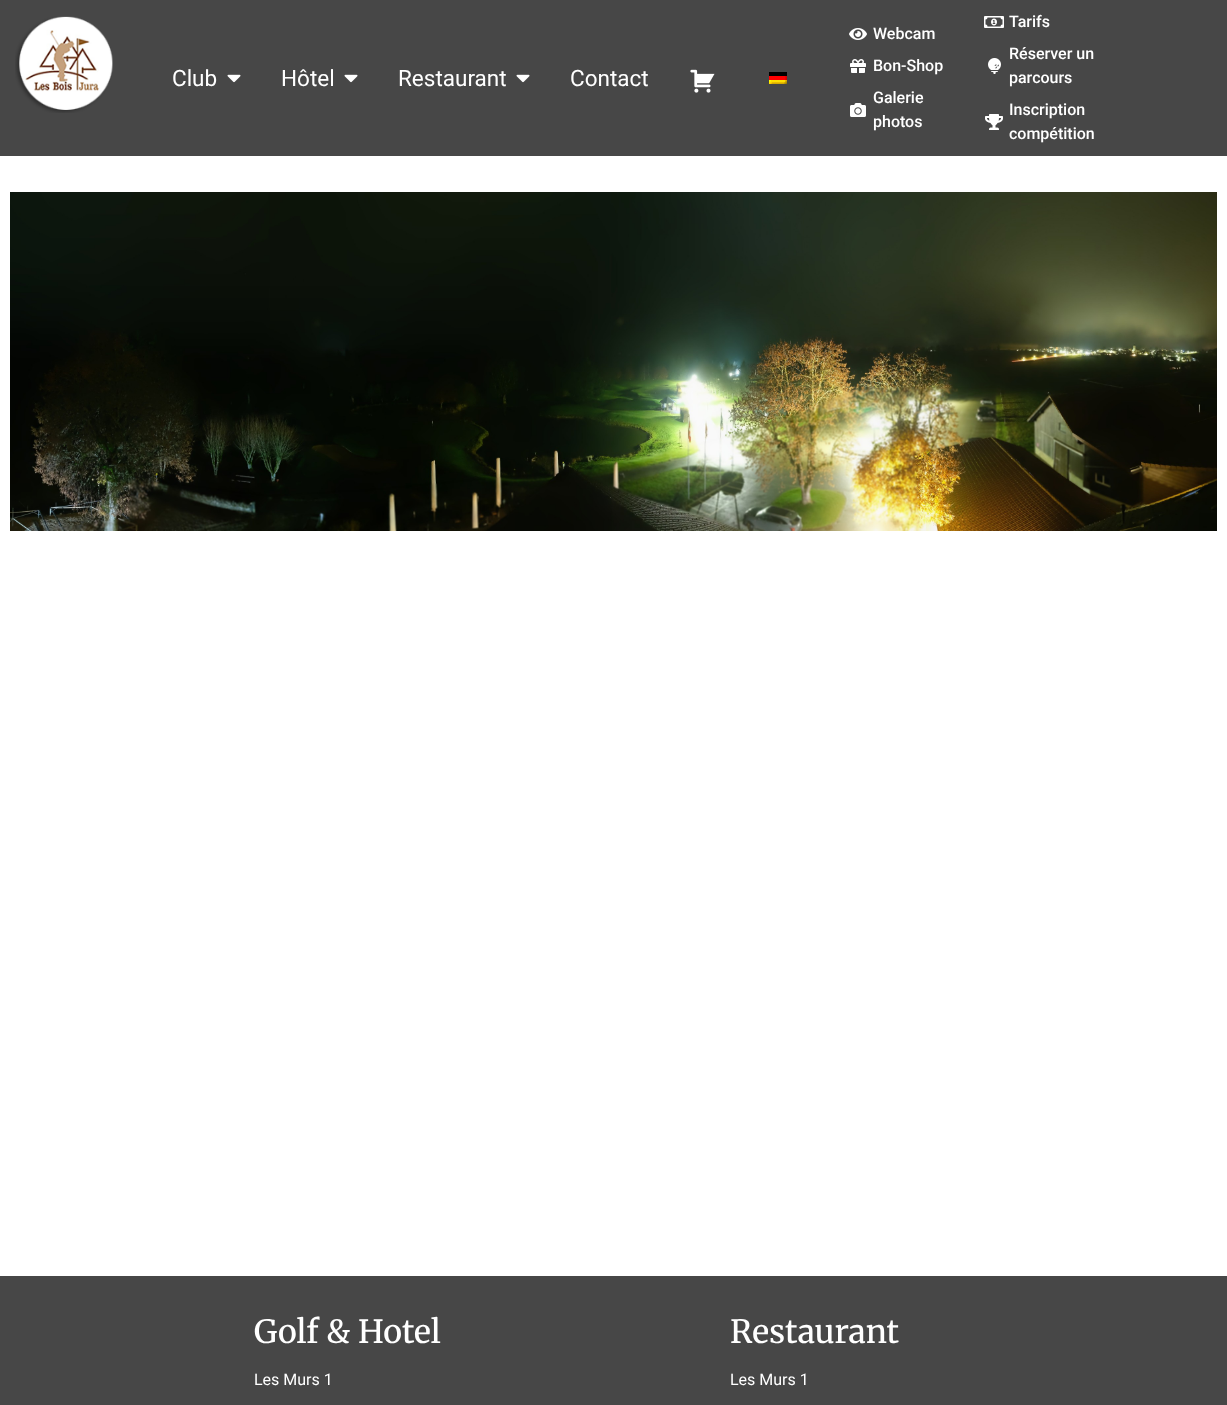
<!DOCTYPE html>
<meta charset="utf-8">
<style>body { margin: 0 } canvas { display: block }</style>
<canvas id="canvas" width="1227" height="1405"></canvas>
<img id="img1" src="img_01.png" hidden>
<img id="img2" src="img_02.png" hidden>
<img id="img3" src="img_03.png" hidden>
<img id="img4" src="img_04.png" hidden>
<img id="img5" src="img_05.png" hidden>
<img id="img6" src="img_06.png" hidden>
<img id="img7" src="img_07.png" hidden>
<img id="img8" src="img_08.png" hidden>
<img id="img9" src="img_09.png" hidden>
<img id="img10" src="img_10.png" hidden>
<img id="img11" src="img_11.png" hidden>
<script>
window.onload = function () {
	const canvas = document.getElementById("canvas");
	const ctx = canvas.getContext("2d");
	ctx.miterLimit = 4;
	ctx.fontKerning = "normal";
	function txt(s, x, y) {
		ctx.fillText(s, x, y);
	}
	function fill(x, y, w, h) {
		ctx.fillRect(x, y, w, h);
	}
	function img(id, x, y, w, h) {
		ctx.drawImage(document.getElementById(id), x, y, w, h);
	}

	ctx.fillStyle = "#FFFFFF";
	fill(0, 0, 1227, 1405);
	ctx.fillStyle = "#474747";
	fill(0, 0, 1227, 156);
	img("img1", 15, 16, 98, 97);
	img("img2", 227, 74, 14, 9);
	img("img2", 344, 74, 14, 9);
	img("img2", 516, 74, 14, 9);
	img("img3", 690, 69, 25, 24);
	img("img4", 769, 72, 18, 12);
	img("img5", 849, 28, 18, 12);
	img("img6", 850, 59, 16, 14);
	img("img7", 850, 103, 16, 14);
	img("img8", 984, 16, 20, 12);
	img("img9", 988, 58, 13, 16);
	img("img10", 985, 114, 18, 16);
	img("img11", 10, 192, 1207, 339);
	fill(0, 1276, 1227, 129);
	ctx.font = "22.5px Roboto";
	ctx.fillStyle = "#FFFFFF";
	txt("Club", 172, 86);
	txt("Hôtel", 281, 86);
	txt("Restaurant", 398, 86);
	txt("Contact", 570, 86);
	ctx.font = "500 16px Roboto";
	txt("Webcam", 873, 39);
	txt("Bon-Shop", 873, 71);
	txt("Galerie", 873, 103);
	txt("photos", 873, 127);
	txt("Tarifs", 1009, 27);
	txt("Réserver un", 1009, 59);
	txt("parcours", 1009, 83);
	txt("Inscription", 1009, 115);
	txt("compétition", 1009, 139);
	ctx.font = "500 32px Merriweather";
	txt("Golf & Hotel", 254, 1343);
	ctx.font = "16px Roboto";
	txt("Les Murs 1", 254, 1385);
	ctx.font = "500 32px Merriweather";
	txt("Restaurant", 730, 1343);
	ctx.font = "16px Roboto";
	txt("Les Murs 1", 730, 1385);
};
</script>
